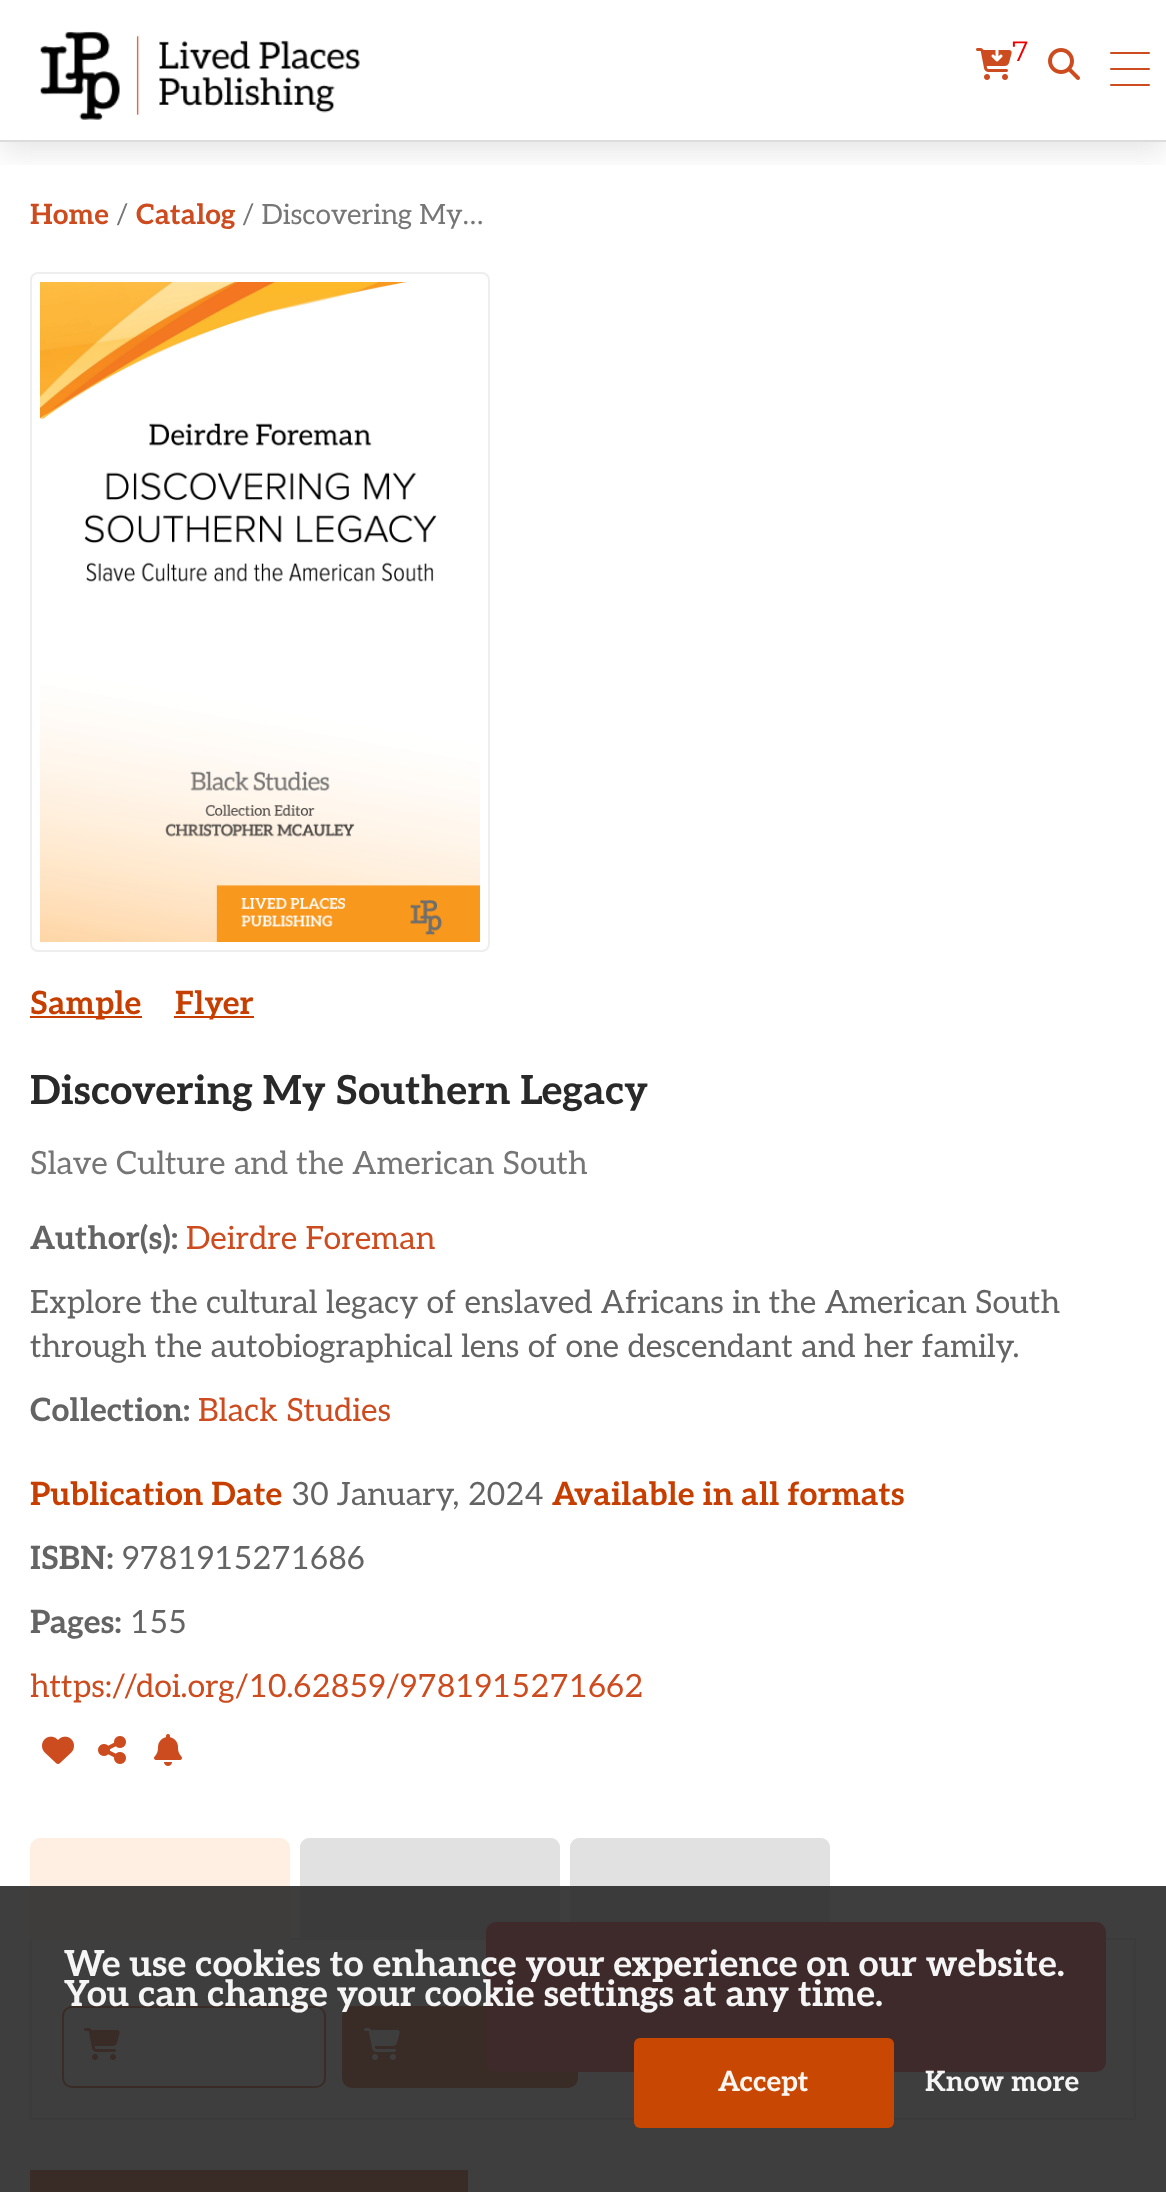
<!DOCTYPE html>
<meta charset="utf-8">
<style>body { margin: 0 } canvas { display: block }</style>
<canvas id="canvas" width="1166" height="2192"></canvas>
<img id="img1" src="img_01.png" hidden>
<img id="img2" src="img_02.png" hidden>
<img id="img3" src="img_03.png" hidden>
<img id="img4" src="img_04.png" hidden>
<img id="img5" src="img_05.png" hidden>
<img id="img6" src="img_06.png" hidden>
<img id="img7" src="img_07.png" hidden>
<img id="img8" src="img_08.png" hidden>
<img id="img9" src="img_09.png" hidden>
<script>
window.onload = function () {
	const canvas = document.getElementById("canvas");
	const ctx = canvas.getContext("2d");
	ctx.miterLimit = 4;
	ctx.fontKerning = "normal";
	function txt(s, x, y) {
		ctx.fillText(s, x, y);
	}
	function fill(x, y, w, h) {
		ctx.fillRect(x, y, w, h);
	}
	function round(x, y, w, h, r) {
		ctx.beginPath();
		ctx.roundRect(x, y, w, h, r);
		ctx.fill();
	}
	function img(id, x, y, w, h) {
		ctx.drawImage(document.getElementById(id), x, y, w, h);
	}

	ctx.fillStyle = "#FFFFFF";
	fill(0, 0, 1166, 2192);
	ctx.save();
	ctx.beginPath();
	ctx.rect(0, 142, 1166, 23);
	ctx.clip();
	ctx.fillStyle = "rgba(0, 0, 0, 0.1)";
	ctx.filter = "blur(15px)";
	ctx.beginPath();
	ctx.rect(0, 10, 1166, 142);
	ctx.fill();
	ctx.filter = "none";
	ctx.restore();
	ctx.fillStyle = "#DCDCDC";
	fill(0, 140, 1166, 2);
	img("img1", 40, 31, 320, 89);
	img("img2", 976, 48, 36, 32);
	img("img3", 1048, 48, 32, 32);
	ctx.fillStyle = "#CD4C1F";
	round(1110, 52, 40, 2, 1);
	round(1110, 68, 40, 2, 1);
	round(1110, 84, 40, 2, 1);
	ctx.beginPath();
	ctx.roundRect(31, 273, 458, 678, 7);
	ctx.strokeStyle = "#EEEEEE";
	ctx.lineWidth = 2;
	ctx.stroke();
	img("img4", 40, 282, 440, 660);
	ctx.fillStyle = "#C63F00";
	fill(30, 1016, 112, 2);
	fill(174, 1016, 80, 2);
	img("img5", 42, 1736, 32, 28);
	img("img6", 98, 1736, 28, 28);
	img("img7", 154, 1734, 28, 32);
	ctx.strokeStyle = "#E1E1E1";
	ctx.strokeRect(31, 1939, 1104, 180);
	ctx.fillStyle = "#FFEEE2";
	ctx.beginPath();
	ctx.roundRect(30, 1838, 260, 102, [10, 10, 0, 0]);
	ctx.fill();
	ctx.fillStyle = "#E1E1E1";
	ctx.beginPath();
	ctx.roundRect(300, 1838, 260, 100, [10, 10, 0, 0]);
	ctx.fill();
	ctx.beginPath();
	ctx.moveTo(310, 1838);
	ctx.lineTo(550, 1838);
	ctx.bezierCurveTo(556, 1838, 560, 1842, 560, 1848);
	ctx.lineTo(560, 1938);
	ctx.lineTo(300, 1938);
	ctx.lineTo(300, 1848);
	ctx.bezierCurveTo(300, 1842, 304, 1838, 310, 1838);
	ctx.closePath();
	ctx.moveTo(310, 1840);
	ctx.lineTo(550, 1840);
	ctx.bezierCurveTo(554, 1840, 558, 1844, 558, 1848);
	ctx.lineTo(558, 1938);
	ctx.lineTo(302, 1938);
	ctx.lineTo(302, 1848);
	ctx.bezierCurveTo(302, 1844, 306, 1840, 310, 1840);
	ctx.closePath();
	ctx.fill("evenodd");
	ctx.beginPath();
	ctx.roundRect(570, 1838, 260, 100, [10, 10, 0, 0]);
	ctx.fill();
	ctx.beginPath();
	ctx.moveTo(580, 1838);
	ctx.lineTo(820, 1838);
	ctx.bezierCurveTo(826, 1838, 830, 1842, 830, 1848);
	ctx.lineTo(830, 1938);
	ctx.lineTo(570, 1938);
	ctx.lineTo(570, 1848);
	ctx.bezierCurveTo(570, 1842, 574, 1838, 580, 1838);
	ctx.closePath();
	ctx.moveTo(580, 1840);
	ctx.lineTo(820, 1840);
	ctx.bezierCurveTo(824, 1840, 828, 1844, 828, 1848);
	ctx.lineTo(828, 1938);
	ctx.lineTo(572, 1938);
	ctx.lineTo(572, 1848);
	ctx.bezierCurveTo(572, 1844, 576, 1840, 580, 1840);
	ctx.closePath();
	ctx.fill("evenodd");
	ctx.beginPath();
	ctx.roundRect(63, 2007, 262, 80, 9);
	ctx.strokeStyle = "#C63F00";
	ctx.stroke();
	img("img8", 84, 2028, 36, 32);
	ctx.fillStyle = "#C63F00";
	ctx.beginPath();
	ctx.roundRect(343, 2007, 234, 80, 9);
	ctx.fill();
	ctx.stroke();
	img("img9", 364, 2028, 36, 32);
	fill(30, 2170, 438, 22);
	ctx.fillStyle = "#F93943";
	round(486, 1922, 620, 150, 10);
	ctx.fillStyle = "rgba(41, 41, 41, 0.9)";
	fill(0, 1886, 1166, 306);
	ctx.fillStyle = "rgba(208, 73, 0, 0.95)";
	round(634, 2038, 260, 90, 6);
	ctx.font = "28px Montserrat";
	ctx.fillStyle = "#EF0000";
	txt("7", 1012, 61);
	ctx.font = "bold 28px Aleo";
	ctx.fillStyle = "#CD4C1F";
	txt("Home", 30, 224);
	ctx.font = "28px Aleo";
	ctx.fillStyle = "#767676";
	txt("/", 116, 224);
	ctx.font = "bold 28px Aleo";
	ctx.fillStyle = "#CD4C1F";
	txt("Catalog", 136, 224);
	ctx.font = "28px Aleo";
	ctx.fillStyle = "#767676";
	txt("/ Discovering My…", 242, 224);
	ctx.font = "bold 32px Aleo";
	ctx.fillStyle = "#C63F00";
	txt("Sample", 30, 1014);
	txt("Flyer", 175, 1014);
	ctx.font = "bold 40px Aleo";
	ctx.fillStyle = "#292929";
	txt("Discovering My Southern Legacy", 30, 1104);
	ctx.font = "32px Aleo";
	ctx.fillStyle = "#767676";
	txt("Slave Culture and the American South", 30, 1174);
	ctx.font = "bold 32px Aleo";
	ctx.fillStyle = "#646464";
	txt("Author(s):", 30, 1249);
	ctx.font = "32px Aleo";
	ctx.fillStyle = "#CD4C1F";
	txt("Deirdre Foreman", 186, 1249);
	ctx.fillStyle = "#646464";
	txt("Explore the cultural legacy of enslaved Africans in the American South", 30, 1313);
	txt("through the autobiographical lens of one descendant and her family.", 30, 1357);
	ctx.font = "bold 32px Aleo";
	txt("Collection:", 30, 1421);
	ctx.font = "32px Aleo";
	ctx.fillStyle = "#CD4C1F";
	txt("Black Studies", 198, 1421);
	ctx.font = "bold 32px Aleo";
	ctx.fillStyle = "#C63F00";
	txt("Publication Date", 30, 1505);
	ctx.font = "32px Aleo";
	ctx.fillStyle = "#646464";
	txt("30 January, 2024", 291, 1505);
	ctx.font = "bold 32px Aleo";
	ctx.fillStyle = "#C63F00";
	txt("Available in all formats", 552, 1505);
	ctx.fillStyle = "#646464";
	txt("ISBN:", 30, 1569);
	ctx.font = "32px Aleo";
	txt("9781915271686", 122, 1569);
	ctx.font = "bold 32px Aleo";
	txt("Pages:", 30, 1633);
	ctx.font = "32px Aleo";
	txt("155", 130, 1633);
	ctx.fillStyle = "#CD4C1F";
	txt("https://doi.org/10.62859/9781915271662", 30, 1697);
	ctx.font = "bold 36px Aleo";
	ctx.fillStyle = "#F5F5F5";
	txt("We use cookies to enhance your experience on our website.", 64, 1976);
	txt("You can change your cookie settings at any time.", 64, 2006);
	ctx.font = "bold 28px Aleo";
	ctx.fillStyle = "#FCF6F2";
	txt("Accept", 718, 2091);
	ctx.fillStyle = "#F5F5F5";
	txt("Know more", 925, 2091);
};
</script>
